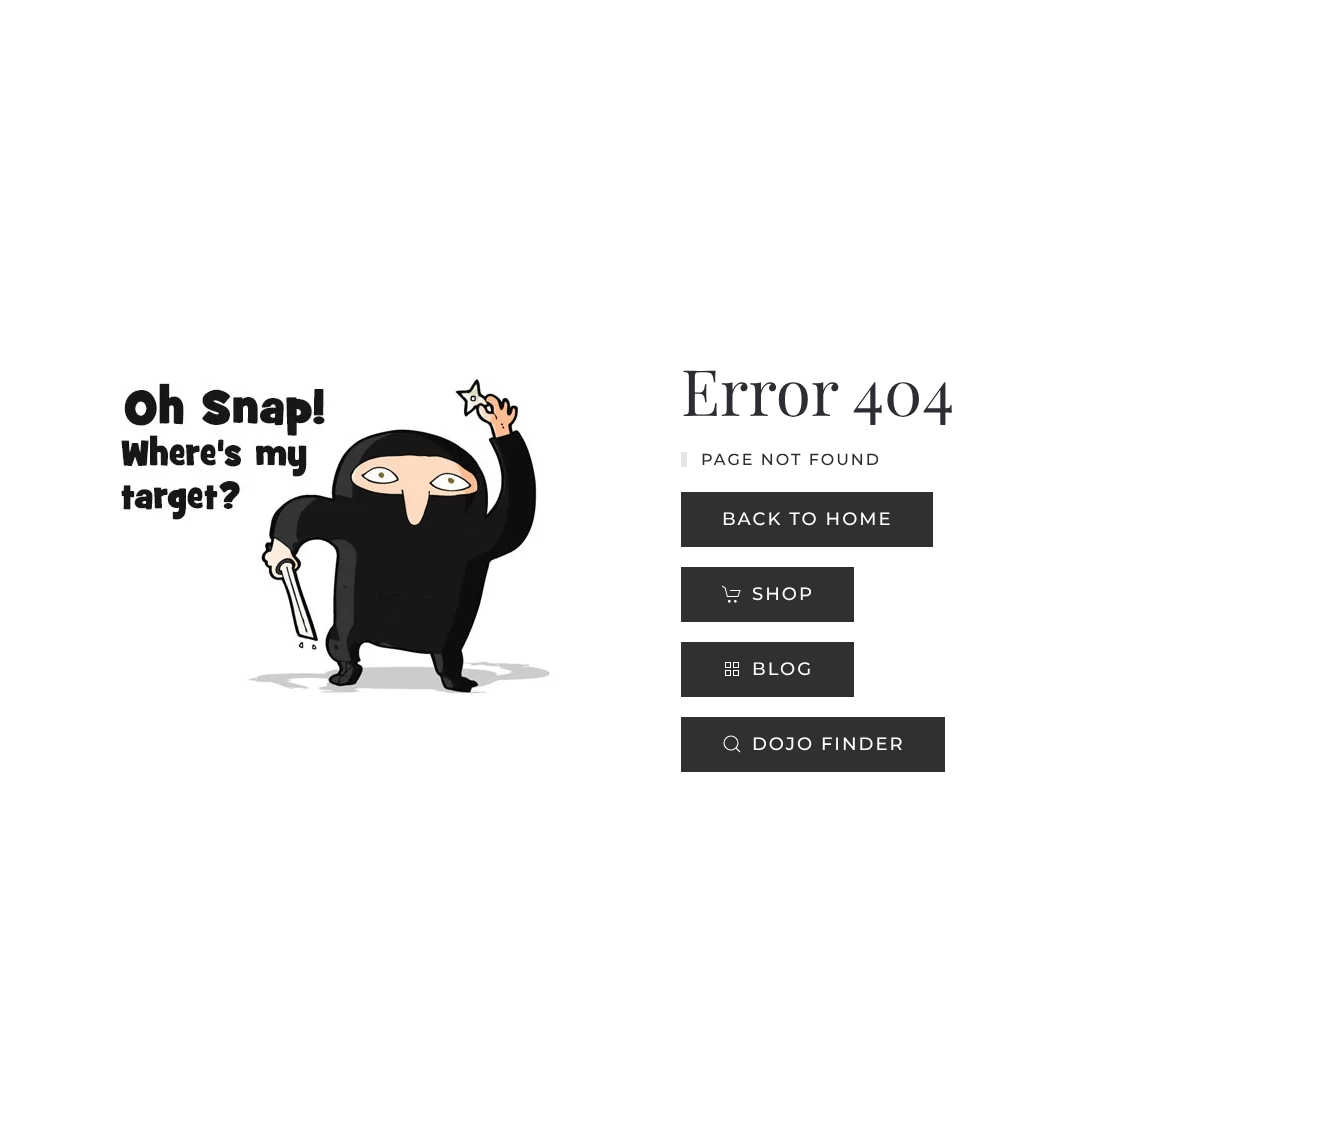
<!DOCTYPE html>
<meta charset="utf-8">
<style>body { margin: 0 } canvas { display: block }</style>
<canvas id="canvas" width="1321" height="1124"></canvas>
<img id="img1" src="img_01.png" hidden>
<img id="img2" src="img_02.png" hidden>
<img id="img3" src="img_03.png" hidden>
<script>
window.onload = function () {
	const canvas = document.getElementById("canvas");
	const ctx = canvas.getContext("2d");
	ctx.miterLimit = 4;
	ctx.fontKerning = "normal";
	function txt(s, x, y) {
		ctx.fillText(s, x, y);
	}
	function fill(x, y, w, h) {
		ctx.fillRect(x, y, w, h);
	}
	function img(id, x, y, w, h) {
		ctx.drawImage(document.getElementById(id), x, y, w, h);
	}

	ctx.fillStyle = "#FFFFFF";
	fill(0, 0, 1321, 1124);
	img("img1", 121, 376, 432, 320);
	ctx.fillStyle = "#E5E5E7";
	fill(681, 452, 6, 15);
	ctx.fillStyle = "#303033";
	fill(681, 492, 252, 55);
	fill(681, 567, 173, 55);
	img("img2", 722, 585, 19, 18);
	fill(681, 642, 173, 55);
	img("img3", 725, 662, 14, 14);
	fill(681, 717, 264, 55);
	ctx.beginPath();
	ctx.arc(731, 743, 7, 0, Math.PI * 2);
	ctx.strokeStyle = "#FFFFFF";
	ctx.lineWidth = 1.1;
	ctx.stroke();
	ctx.beginPath();
	ctx.moveTo(736, 748);
	ctx.lineTo(740, 752);
	ctx.closePath();
	ctx.stroke();
	ctx.font = "64px Playfair Display";
	ctx.fillStyle = "#2D2E33";
	txt("Error 404", 681, 416);
	ctx.letterSpacing = "2px";
	ctx.font = "100 16px Montserrat";
	txt("PAGE NOT FOUND", 701, 465);
	ctx.font = "100 18px Montserrat";
	ctx.fillStyle = "#FFFFFF";
	txt("BACK TO HOME", 722, 525);
	txt("SHOP", 752, 600);
	txt("BLOG", 752, 675);
	txt("DOJO FINDER", 752, 750);
};
</script>
